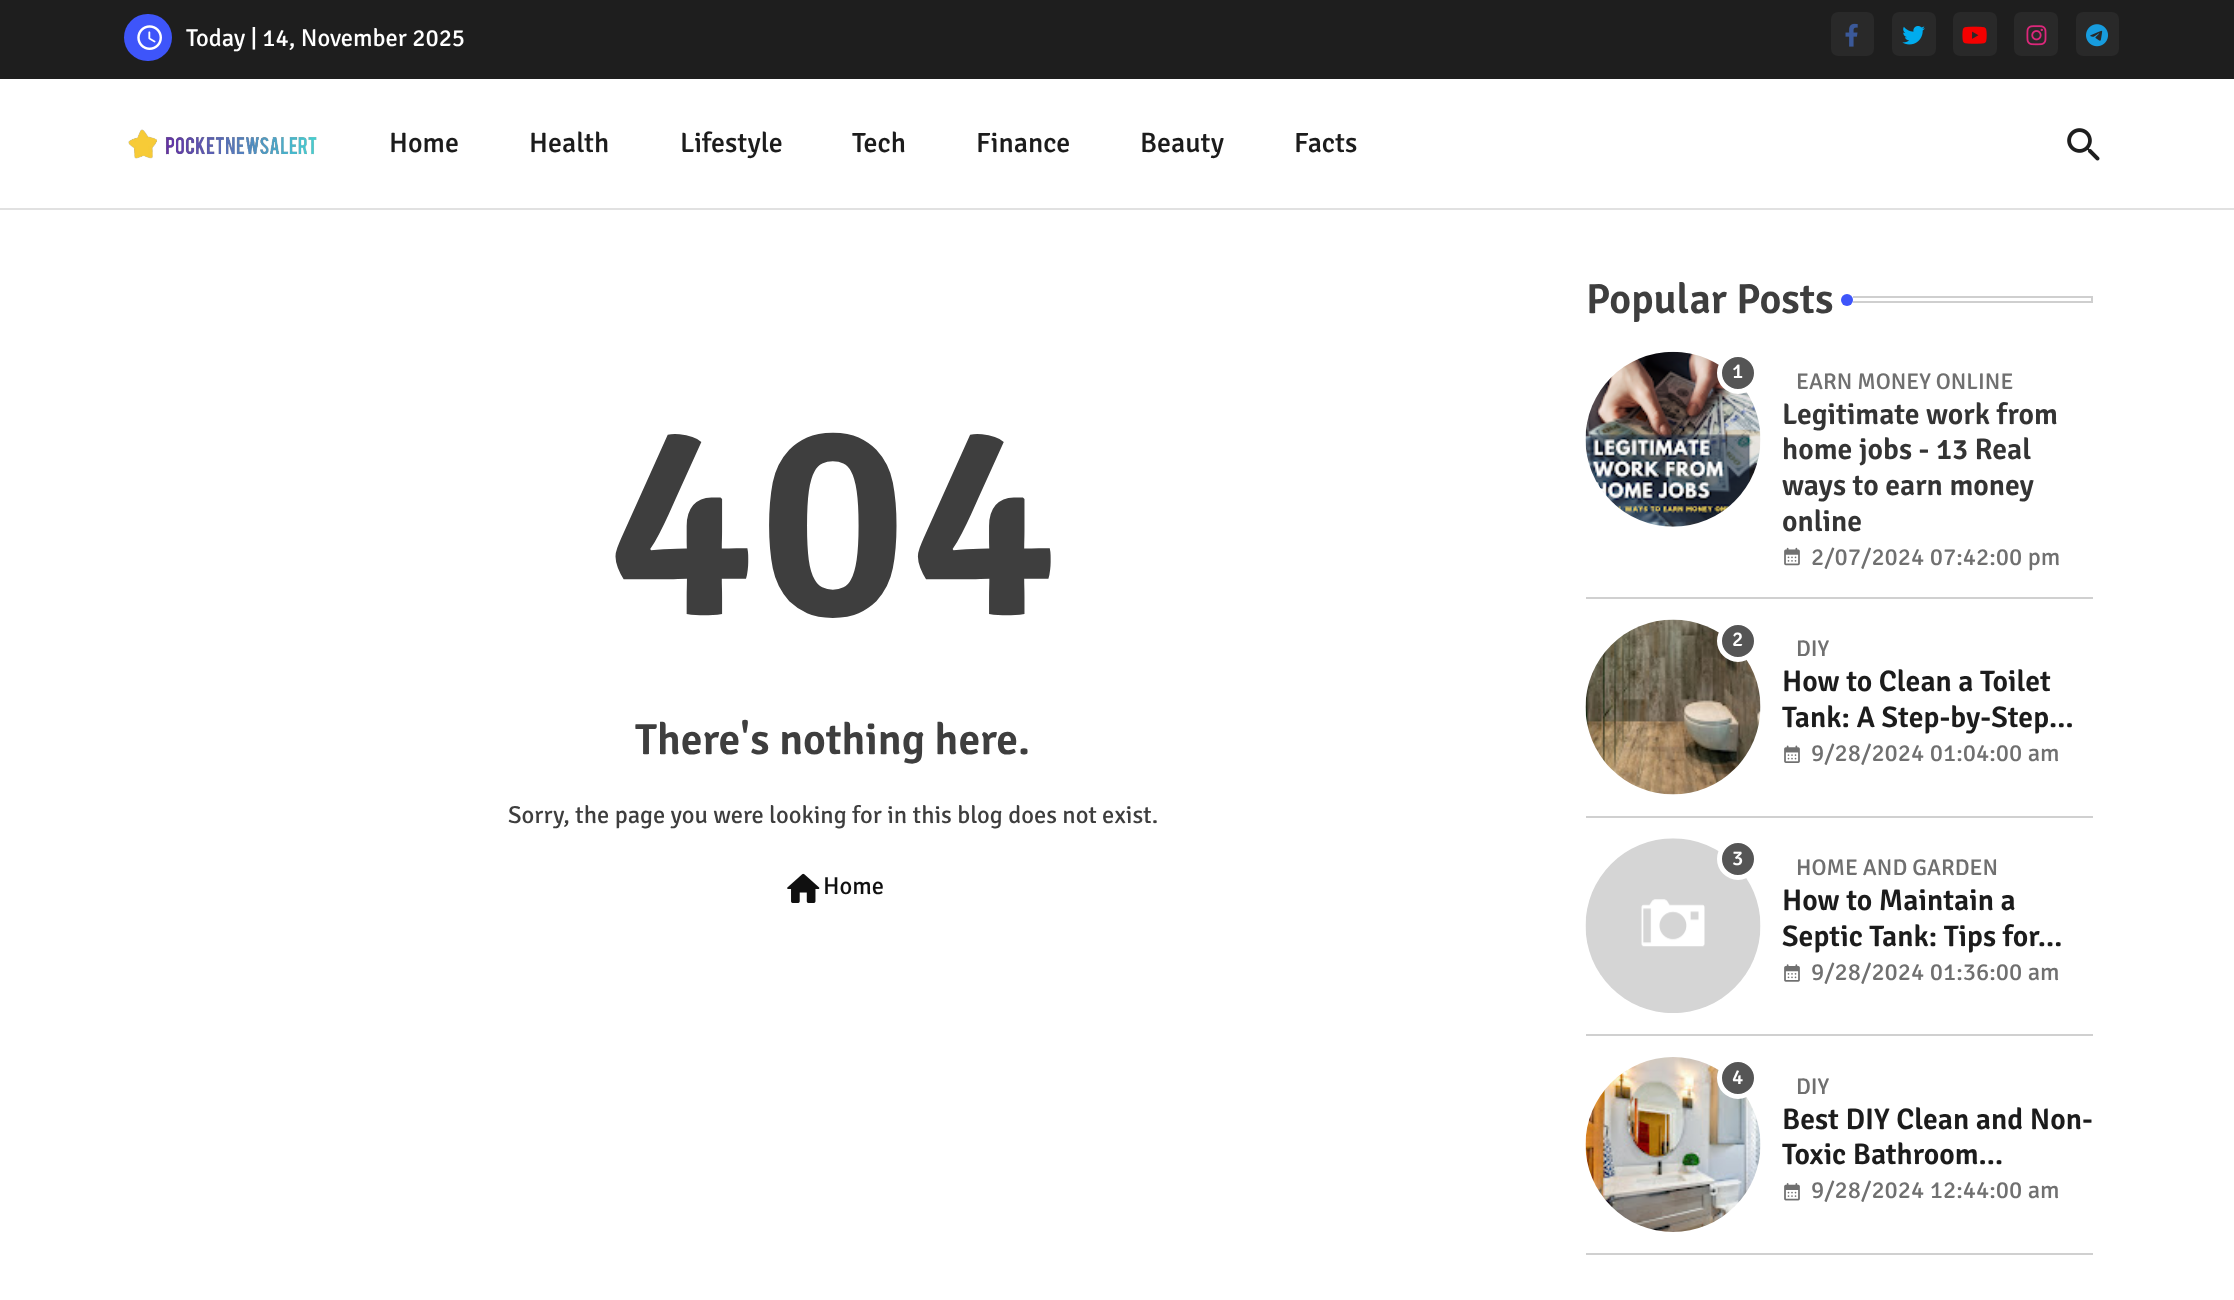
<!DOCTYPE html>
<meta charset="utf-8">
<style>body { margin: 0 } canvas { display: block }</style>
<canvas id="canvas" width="2234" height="1300"></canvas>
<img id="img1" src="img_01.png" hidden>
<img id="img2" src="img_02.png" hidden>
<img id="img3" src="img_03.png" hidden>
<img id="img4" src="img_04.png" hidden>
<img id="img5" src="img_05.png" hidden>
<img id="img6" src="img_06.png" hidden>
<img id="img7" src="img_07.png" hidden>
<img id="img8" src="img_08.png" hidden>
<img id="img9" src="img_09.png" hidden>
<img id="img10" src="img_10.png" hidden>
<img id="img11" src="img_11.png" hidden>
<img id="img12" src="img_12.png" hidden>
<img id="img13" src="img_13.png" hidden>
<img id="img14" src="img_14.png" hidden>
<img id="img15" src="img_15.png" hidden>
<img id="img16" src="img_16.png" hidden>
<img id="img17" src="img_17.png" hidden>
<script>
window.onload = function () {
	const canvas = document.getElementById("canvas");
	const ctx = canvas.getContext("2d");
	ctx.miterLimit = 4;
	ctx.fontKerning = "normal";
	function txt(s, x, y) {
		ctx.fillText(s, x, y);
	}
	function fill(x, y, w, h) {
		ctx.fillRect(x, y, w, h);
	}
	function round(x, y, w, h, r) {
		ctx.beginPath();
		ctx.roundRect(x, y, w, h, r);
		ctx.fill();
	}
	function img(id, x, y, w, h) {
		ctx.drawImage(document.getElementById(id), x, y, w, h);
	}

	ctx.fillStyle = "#FFFFFF";
	fill(0, 0, 2234, 1300);
	ctx.fillStyle = "#1E1E1E";
	fill(0, 0, 2234, 79);
	ctx.fillStyle = "#3E55FA";
	round(124, 14, 48, 47, 23.5);
	img("img1", 137, 25, 25, 25);
	ctx.fillStyle = "#292929";
	round(1831, 12, 43, 44, 7);
	img("img2", 1845, 23, 13, 24);
	round(1892, 12, 44, 44, 7);
	img("img3", 1902, 26, 23, 19);
	round(1953, 12, 44, 44, 7);
	img("img4", 1962, 26, 25, 18);
	round(2014, 12, 44, 44, 7);
	img("img5", 2026, 25, 21, 21);
	round(2076, 12, 43, 44, 7);
	img("img6", 2086, 24, 22, 23);
	ctx.fillStyle = "#E1E1E1";
	fill(0, 208, 2234, 2);
	img("img7", 128, 129, 189, 30);
	img("img8", 2067, 128, 33, 33);
	img("img9", 787, 873, 33, 30);
	ctx.strokeStyle = "#CFCFCF";
	ctx.lineWidth = 2;
	ctx.strokeRect(1587, 297, 505, 5);
	ctx.fillStyle = "#FFFFFF";
	fill(1586, 296, 267, 7);
	ctx.fillStyle = "#3E55FA";
	ctx.beginPath();
	ctx.arc(1847, 300, 6, 0, Math.PI * 2);
	ctx.fill();
	ctx.fillStyle = "#D0D0D0";
	fill(1586, 597, 507, 2);
	img("img10", 1585, 351, 176, 176);
	ctx.fillStyle = "#555555";
	ctx.beginPath();
	ctx.arc(1738, 373, 18.5, 0, Math.PI * 2);
	ctx.fill();
	ctx.strokeStyle = "#FFFFFF";
	ctx.lineWidth = 5;
	ctx.stroke();
	img("img11", 1784, 547, 16, 19);
	ctx.fillStyle = "#D0D0D0";
	fill(1586, 816, 507, 2);
	img("img12", 1585, 619, 176, 176);
	ctx.fillStyle = "#555555";
	ctx.beginPath();
	ctx.arc(1738, 641, 18.5, 0, Math.PI * 2);
	ctx.fill();
	ctx.stroke();
	img("img13", 1784, 745, 16, 18);
	ctx.fillStyle = "#D0D0D0";
	fill(1586, 1034, 507, 2);
	img("img14", 1585, 838, 176, 175);
	ctx.fillStyle = "#555555";
	ctx.beginPath();
	ctx.arc(1738, 859, 18.5, 0, Math.PI * 2);
	ctx.fill();
	ctx.stroke();
	img("img15", 1784, 964, 16, 18);
	ctx.fillStyle = "#D0D0D0";
	fill(1586, 1253, 507, 2);
	img("img16", 1585, 1057, 176, 175);
	ctx.fillStyle = "#555555";
	ctx.beginPath();
	ctx.arc(1738, 1078, 18.5, 0, Math.PI * 2);
	ctx.fill();
	ctx.stroke();
	img("img17", 1784, 1183, 16, 18);
	ctx.font = "24.5px Signika";
	ctx.fillStyle = "#FFFFFF";
	txt("Today | 14, November 2025", 186, 46);
	ctx.font = "500 28px Signika";
	ctx.fillStyle = "#1C1C1C";
	txt("Home", 389, 152);
	txt("Health", 529, 152);
	txt("Lifestyle", 680, 152);
	txt("Tech", 852, 152);
	txt("Finance", 976, 152);
	txt("Beauty", 1140, 152);
	txt("Facts", 1294, 152);
	ctx.font = "600 280px Signika";
	ctx.fillStyle = "#3E3E3E";
	txt("404", 606, 614);
	ctx.font = "600 43.75px Signika";
	txt("There's nothing here.", 635, 754);
	ctx.font = "24.5px Signika";
	txt("Sorry, the page you were looking for in this blog does not exist.", 508, 823);
	ctx.fillStyle = "#101010";
	txt("Home", 823, 894);
	ctx.font = "600 42px Signika";
	ctx.fillStyle = "#3E3E3E";
	txt("Popular Posts", 1586, 313);
	ctx.font = "500 21px Signika";
	ctx.fillStyle = "#FFFFFF";
	txt("1", 1732, 378);
	ctx.font = "500 22.75px Signika";
	ctx.fillStyle = "#707070";
	txt("EARN MONEY ONLINE", 1796, 389);
	ctx.font = "600 29.75px Signika";
	ctx.fillStyle = "#343434";
	txt("Legitimate work from", 1782, 424);
	txt("home jobs - 13 Real", 1782, 459);
	txt("ways to earn money", 1782, 495);
	txt("online", 1782, 531);
	ctx.font = "24.5px Signika";
	ctx.fillStyle = "#707070";
	txt("2/07/2024 07:42:00 pm", 1811, 565);
	ctx.font = "500 21px Signika";
	ctx.fillStyle = "#FFFFFF";
	txt("2", 1732, 646);
	ctx.font = "500 22.75px Signika";
	ctx.fillStyle = "#707070";
	txt("DIY", 1796, 656);
	ctx.font = "600 29.75px Signika";
	ctx.fillStyle = "#1C1C1C";
	txt("How to Clean a Toilet", 1782, 691);
	ctx.save();
	ctx.beginPath();
	ctx.rect(1782, 665, 311, 72);
	ctx.clip();
	txt("Tank: A Step-by-Step…", 1782, 727);
	ctx.restore();
	ctx.font = "24.5px Signika";
	ctx.fillStyle = "#707070";
	txt("9/28/2024 01:04:00 am", 1811, 761);
	ctx.font = "500 21px Signika";
	ctx.fillStyle = "#FFFFFF";
	txt("3", 1732, 865);
	ctx.font = "500 22.75px Signika";
	ctx.fillStyle = "#707070";
	txt("HOME AND GARDEN", 1796, 875);
	ctx.font = "600 29.75px Signika";
	ctx.fillStyle = "#1C1C1C";
	txt("How to Maintain a", 1782, 910);
	txt("Septic Tank: Tips for…", 1782, 946);
	ctx.font = "24.5px Signika";
	ctx.fillStyle = "#707070";
	txt("9/28/2024 01:36:00 am", 1811, 980);
	ctx.font = "500 21px Signika";
	ctx.fillStyle = "#FFFFFF";
	txt("4", 1732, 1084);
	ctx.font = "500 22.75px Signika";
	ctx.fillStyle = "#707070";
	txt("DIY", 1796, 1094);
	ctx.font = "600 29.75px Signika";
	ctx.fillStyle = "#1C1C1C";
	txt("Best DIY Clean and Non-", 1782, 1129);
	ctx.save();
	ctx.beginPath();
	ctx.rect(1782, 1103, 311, 71);
	ctx.clip();
	txt("Toxic Bathroom…", 1782, 1164);
	ctx.restore();
	ctx.font = "24.5px Signika";
	ctx.fillStyle = "#707070";
	txt("9/28/2024 12:44:00 am", 1811, 1198);
};
</script>
